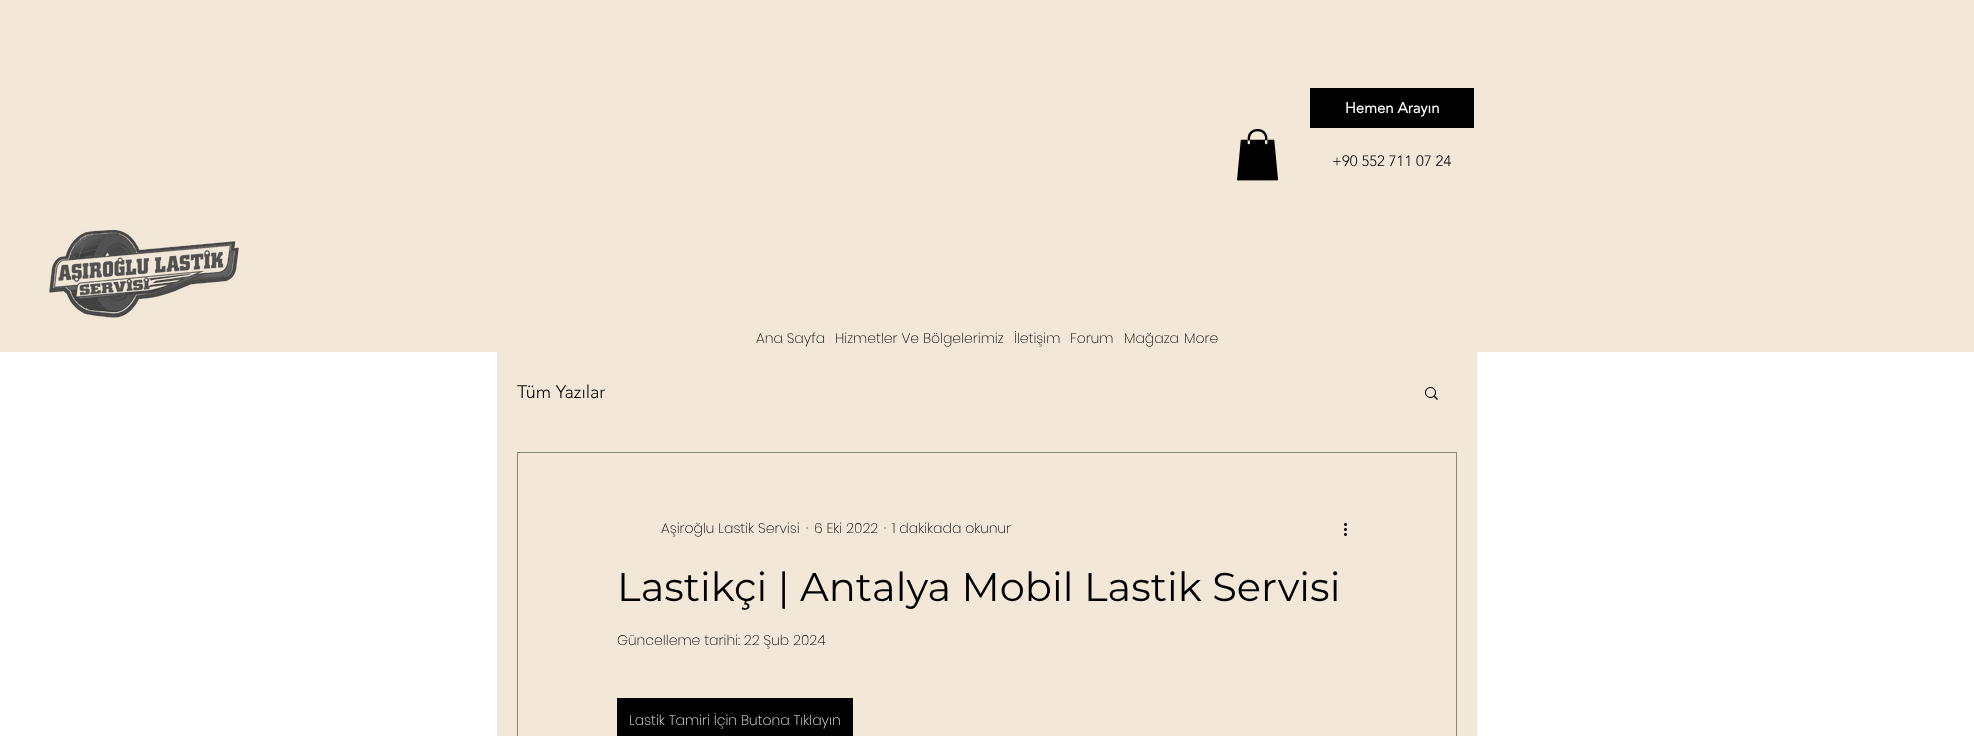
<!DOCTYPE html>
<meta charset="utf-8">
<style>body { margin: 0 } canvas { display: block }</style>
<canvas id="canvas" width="1974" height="736"></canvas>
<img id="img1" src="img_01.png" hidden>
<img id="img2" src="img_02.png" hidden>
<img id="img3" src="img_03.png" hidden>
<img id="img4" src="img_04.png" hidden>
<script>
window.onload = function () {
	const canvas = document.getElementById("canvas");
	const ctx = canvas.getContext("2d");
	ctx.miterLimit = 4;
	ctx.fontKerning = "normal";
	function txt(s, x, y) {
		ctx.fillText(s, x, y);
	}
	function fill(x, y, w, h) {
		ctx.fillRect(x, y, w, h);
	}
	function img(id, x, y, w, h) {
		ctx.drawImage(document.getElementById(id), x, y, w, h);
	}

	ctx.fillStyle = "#FFFFFF";
	fill(0, 0, 1974, 736);
	ctx.fillStyle = "#F3E8D8";
	fill(0, 0, 1974, 352);
	ctx.fillStyle = "#000000";
	fill(1310, 88, 164, 40);
	img("img1", 1237, 129, 41, 52);
	img("img2", 49, 229, 190, 89);
	ctx.fillStyle = "#F3E8D8";
	fill(497, 352, 980, 384);
	img("img3", 1425, 387, 13, 13);
	ctx.strokeStyle = "#838C76";
	ctx.strokeRect(517.5, 452.5, 939, 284);
	img("img4", 1344, 523, 3, 13);
	ctx.fillStyle = "#000000";
	fill(617, 698, 236, 38);
	ctx.font = "bold 15px 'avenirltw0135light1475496'";
	ctx.fillStyle = "#FFFFFF";
	txt("Hemen Arayın", 1345, 113);
	ctx.font = "300 15px 'avenirltw0135light1475496'";
	ctx.fillStyle = "#000000";
	txt("+90 552 711 07 24", 1332, 166);
	ctx.font = "200 14px Poppins";
	txt("Ana Sayfa", 756, 343);
	txt("Hizmetler Ve Bölgelerimiz", 835, 343);
	txt("İletişim", 1014, 343);
	txt("Forum", 1070, 343);
	txt("Mağaza", 1124, 343);
	txt("More", 1184, 343);
	ctx.font = "300 18px 'avenirltw0135light1475496'";
	txt("Tüm Yazılar", 517, 398);
	ctx.font = "200 14px Poppins";
	txt("Aşiroğlu Lastik Servisi", 661, 533);
	txt("·", 806, 533);
	txt("6 Eki 2022", 814, 533);
	txt("·", 884, 533);
	txt("1 dakikada okunur", 892, 533);
	ctx.font = "40px Montserrat";
	txt("Lastikçi | Antalya Mobil Lastik Servisi", 617, 601);
	ctx.font = "200 14px Poppins";
	txt("Güncelleme tarihi: 22 Şub 2024", 617, 645);
	ctx.fillStyle = "#F3E8D8";
	txt("Lastik Tamiri İçin Butona Tıklayın", 629, 725);
};
</script>
